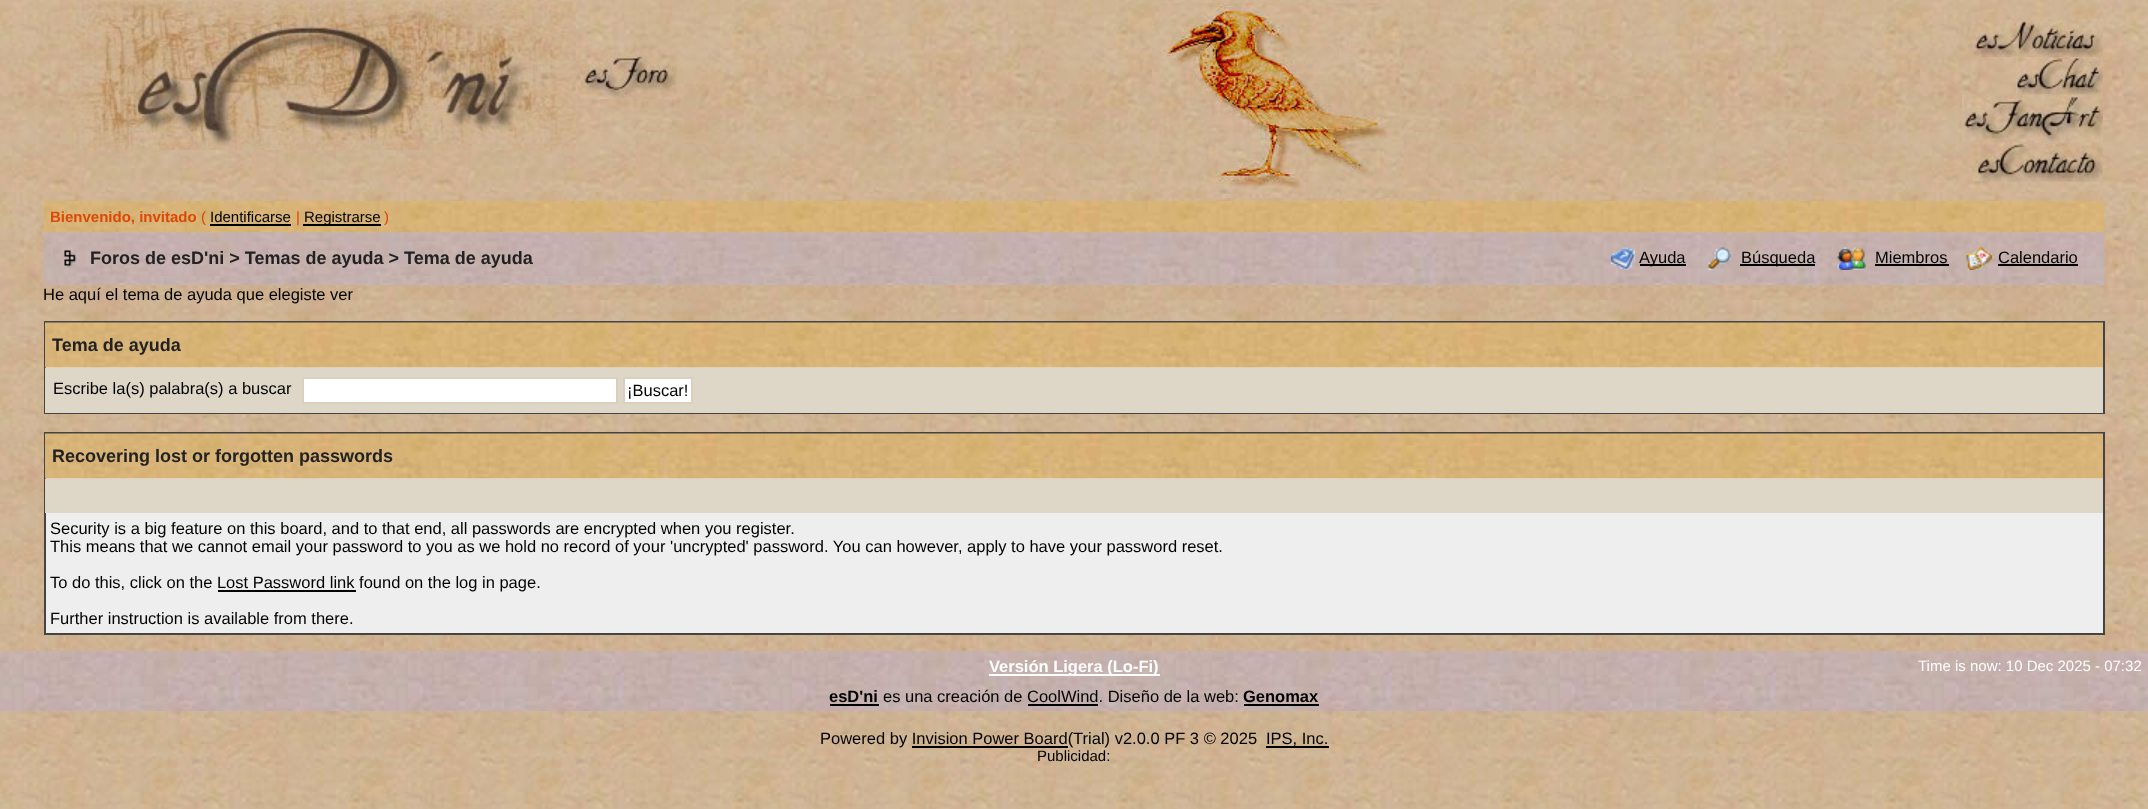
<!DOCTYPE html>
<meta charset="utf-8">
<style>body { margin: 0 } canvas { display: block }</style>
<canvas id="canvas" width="2148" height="809"></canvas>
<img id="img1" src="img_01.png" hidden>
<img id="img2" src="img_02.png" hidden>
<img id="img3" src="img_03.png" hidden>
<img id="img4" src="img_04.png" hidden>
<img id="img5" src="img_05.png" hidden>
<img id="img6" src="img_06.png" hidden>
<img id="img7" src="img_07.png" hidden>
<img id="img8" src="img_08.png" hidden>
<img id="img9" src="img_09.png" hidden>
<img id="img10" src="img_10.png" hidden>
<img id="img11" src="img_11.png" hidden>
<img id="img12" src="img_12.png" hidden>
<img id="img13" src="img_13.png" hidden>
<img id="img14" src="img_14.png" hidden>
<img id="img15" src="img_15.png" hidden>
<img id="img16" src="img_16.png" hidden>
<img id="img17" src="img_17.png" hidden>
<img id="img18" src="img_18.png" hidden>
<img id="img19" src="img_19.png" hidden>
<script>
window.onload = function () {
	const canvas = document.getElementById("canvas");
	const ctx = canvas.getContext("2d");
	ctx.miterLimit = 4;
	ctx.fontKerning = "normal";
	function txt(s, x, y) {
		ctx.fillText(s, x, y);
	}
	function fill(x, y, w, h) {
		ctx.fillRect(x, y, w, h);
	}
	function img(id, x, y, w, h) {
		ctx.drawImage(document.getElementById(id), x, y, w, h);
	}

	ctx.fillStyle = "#FFFFFF";
	fill(0, 0, 2148, 809);
	img("img1", 0, 0, 2148, 809);
	img("img2", 70, 1, 506, 149);
	img("img3", 580, 52, 97, 47);
	img("img4", 1159, 3, 241, 195);
	img("img5", 1972, 19, 131, 38);
	img("img6", 2016, 57, 87, 38);
	img("img7", 1962, 94, 141, 49);
	img("img8", 1972, 142, 131, 40);
	img("img9", 43, 201, 2062, 32);
	ctx.fillStyle = "#000000";
	fill(210, 224, 81, 2);
	fill(303, 224, 78, 2);
	img("img10", 43, 232, 2062, 53);
	img("img11", 53, 241, 1019, 35);
	img("img12", 64, 250, 13, 18);
	img("img13", 1611, 247, 24, 23);
	fill(1640, 264, 46, 2);
	img("img14", 1708, 247, 23, 23);
	fill(1740, 264, 75, 2);
	img("img15", 1837, 247, 29, 23);
	fill(1875, 264, 74, 2);
	img("img16", 1966, 247, 28, 23);
	fill(1998, 264, 80, 2);
	ctx.fillStyle = "#EEEEEE";
	fill(46, 367, 2057, 1);
	ctx.strokeStyle = "#444444";
	ctx.lineWidth = 2;
	ctx.strokeRect(45, 322, 2059, 91);
	img("img17", 45, 322, 2058, 46);
	ctx.fillStyle = "#DED6C6";
	fill(45, 368, 2058, 45);
	ctx.fillStyle = "#FFFFFF";
	ctx.beginPath();
	ctx.rect(303, 378, 314, 25);
	ctx.fill();
	ctx.strokeStyle = "#D9D0C0";
	ctx.stroke();
	ctx.beginPath();
	ctx.rect(624, 378, 68, 25);
	ctx.fill();
	ctx.stroke();
	ctx.fillStyle = "#EEEEEE";
	fill(46, 478, 2057, 155);
	ctx.strokeStyle = "#444444";
	ctx.strokeRect(45, 433, 2059, 201);
	img("img18", 45, 433, 2058, 46);
	ctx.fillStyle = "#DED6C6";
	fill(45, 479, 2058, 34);
	ctx.fillStyle = "#000000";
	fill(218, 590, 138, 2);
	img("img19", 0, 651, 2148, 60);
	ctx.fillStyle = "#FFFFFF";
	fill(989, 674, 171, 2);
	ctx.fillStyle = "#000000";
	fill(830, 704, 49, 2);
	fill(1244, 704, 75, 2);
	fill(1028, 704, 70, 2);
	fill(1266, 746, 63, 2);
	fill(912, 746, 156, 2);
	ctx.font = "bold 15px Liberation Sans";
	ctx.fillStyle = "#DE4704";
	txt("Bienvenido, invitado", 50, 222);
	ctx.font = "15px Liberation Sans";
	txt("(", 201, 222);
	ctx.fillStyle = "#000000";
	txt("Identificarse", 210, 222);
	ctx.fillStyle = "#DE4704";
	txt("|", 296, 222);
	ctx.fillStyle = "#000000";
	txt("Registrarse", 304, 222);
	ctx.fillStyle = "#DE4704";
	txt(")", 384, 222);
	ctx.font = "bold 18px Liberation Sans";
	ctx.fillStyle = "#222222";
	txt("Foros de esD'ni > Temas de ayuda > Tema de ayuda", 90, 264);
	ctx.font = "16.5px Liberation Sans";
	ctx.fillStyle = "#000000";
	txt("Ayuda", 1639, 263);
	txt("Búsqueda", 1741, 263);
	txt("Miembros", 1875, 263);
	txt("Calendario", 1998, 263);
	txt("He aquí el tema de ayuda que elegiste ver", 43, 300);
	ctx.font = "bold 18px Liberation Sans";
	ctx.fillStyle = "#222222";
	txt("Tema de ayuda", 52, 351);
	ctx.font = "16.5px Liberation Sans";
	ctx.fillStyle = "#000000";
	txt("Escribe la(s) palabra(s) a buscar", 53, 394);
	txt("¡Buscar!", 627, 396);
	ctx.font = "bold 18px Liberation Sans";
	ctx.fillStyle = "#222222";
	txt("Recovering lost or forgotten passwords", 52, 462);
	ctx.font = "16.5px Liberation Sans";
	ctx.fillStyle = "#000000";
	txt("Security is a big feature on this board, and to that end, all passwords are encrypted when you register.", 50, 534);
	txt("This means that we cannot email your password to you as we hold no record of your 'uncrypted' password. You can however, apply to have your password reset.", 50, 552);
	txt("To do this, click on the Lost Password link found on the log in page.", 50, 588);
	txt("Further instruction is available from there.", 50, 624);
	ctx.font = "bold 16.5px Liberation Sans";
	ctx.fillStyle = "#FFFFFF";
	txt("Versión Ligera (Lo-Fi)", 989, 672);
	ctx.font = "15px Liberation Sans";
	txt("Time is now: 10 Dec 2025 - 07:32", 1918, 671);
	ctx.font = "bold 16.5px Liberation Sans";
	ctx.fillStyle = "#000000";
	txt("esD'ni", 829, 702);
	ctx.font = "16.5px Liberation Sans";
	txt("es una creación de CoolWind. Diseño de la web:", 883, 702);
	ctx.font = "bold 16.5px Liberation Sans";
	txt("Genomax", 1243, 702);
	ctx.font = "16.5px Liberation Sans";
	txt("Powered by Invision Power Board(Trial) v2.0.0 PF 3 © 2025", 820, 744);
	txt("IPS, Inc.", 1266, 744);
	ctx.font = "15px Liberation Sans";
	txt("Publicidad:", 1037, 761);
};
</script>
